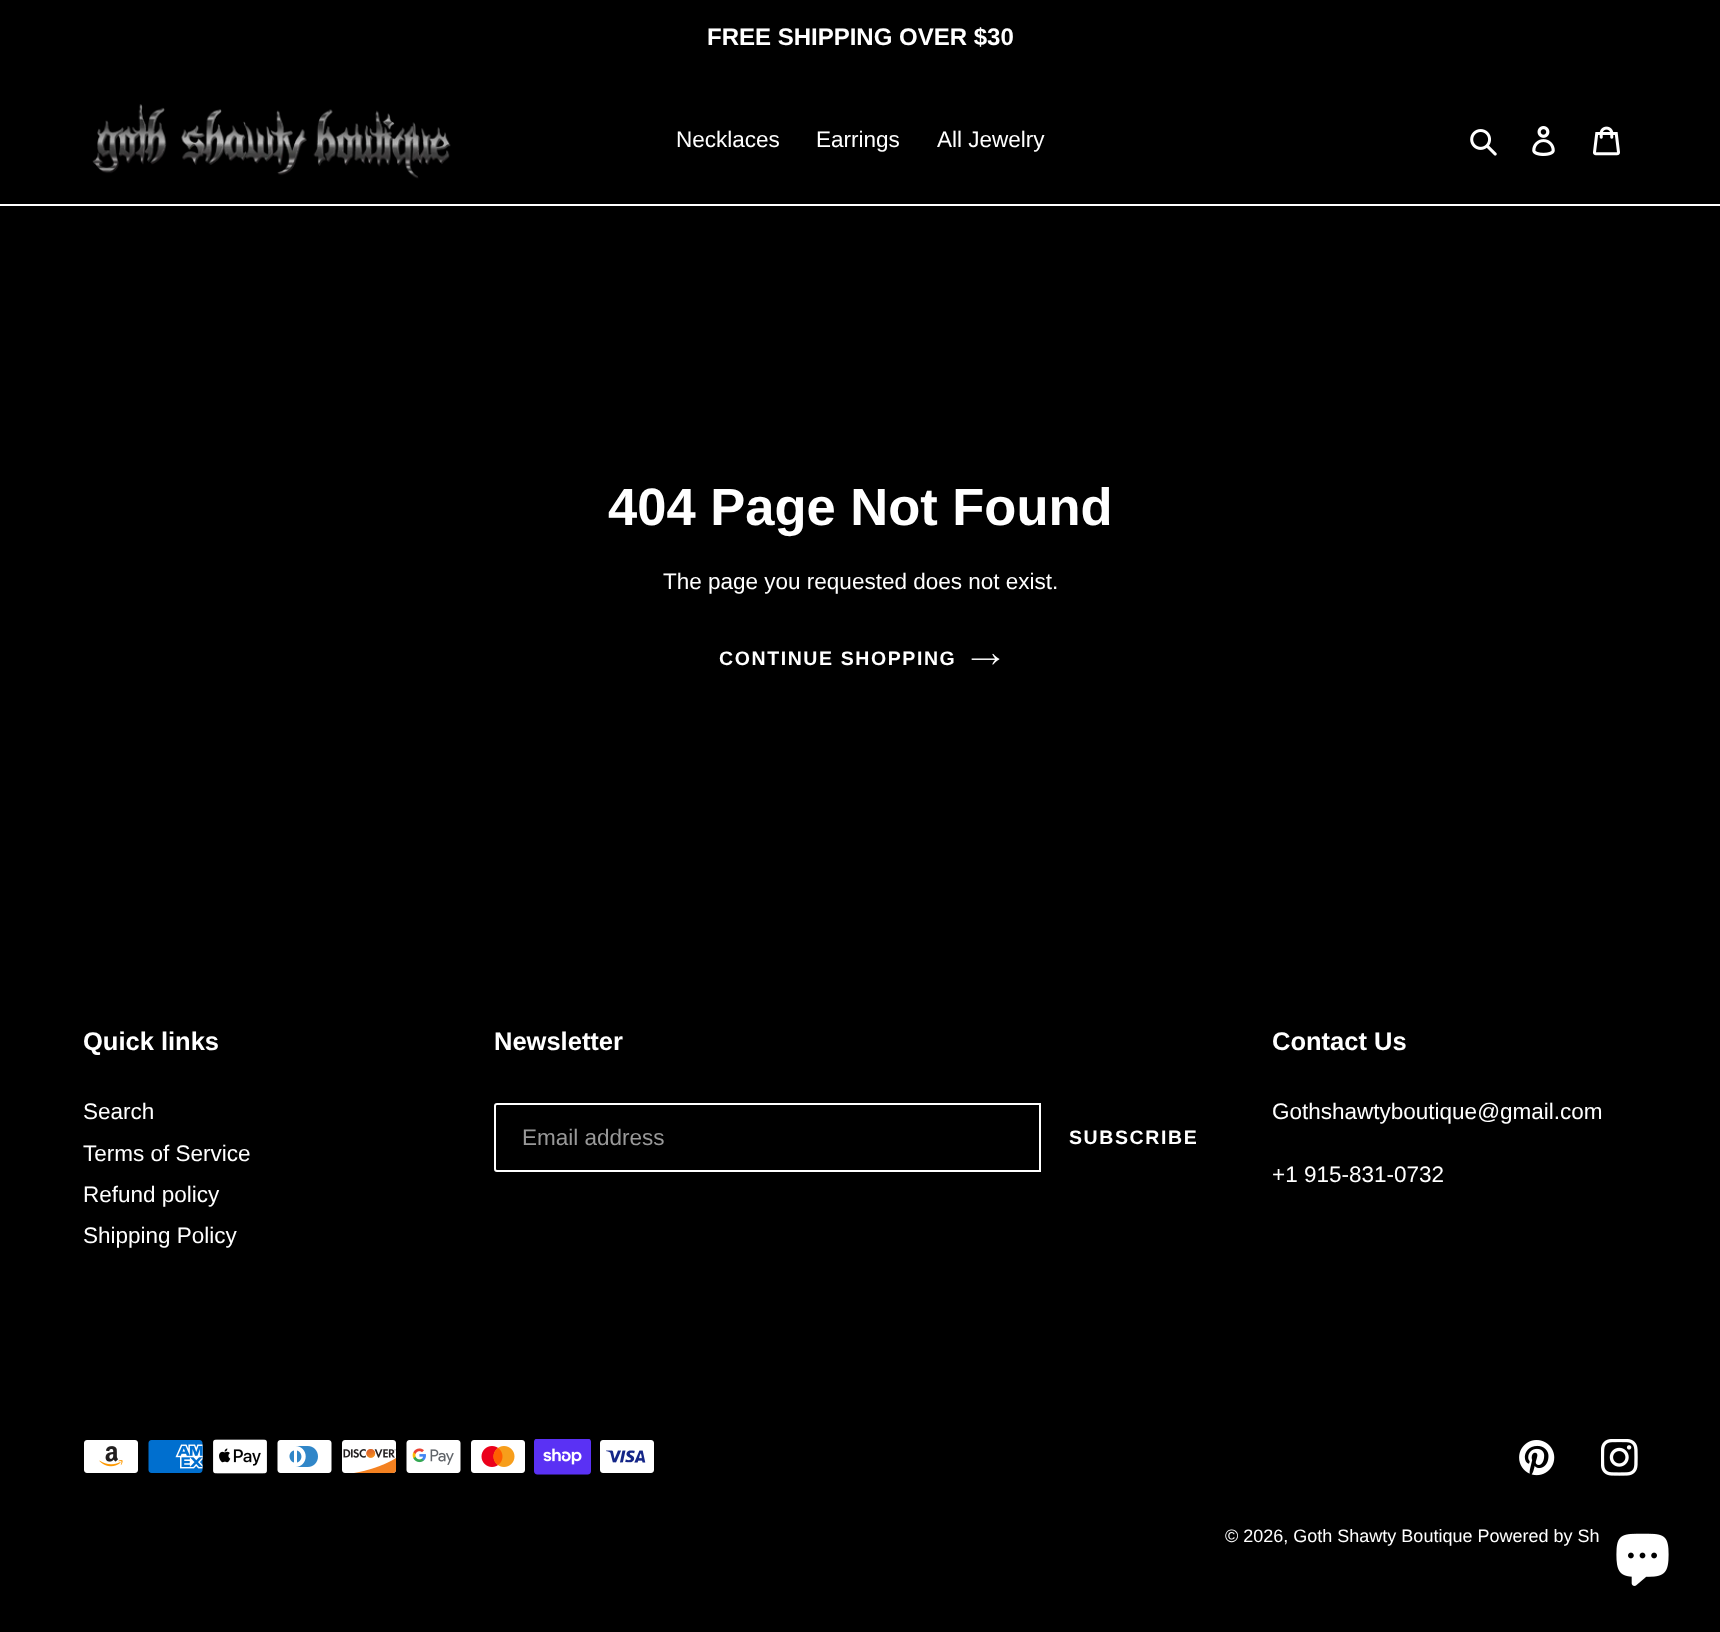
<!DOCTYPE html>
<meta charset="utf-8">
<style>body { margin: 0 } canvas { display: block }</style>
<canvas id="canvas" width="1720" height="1632"></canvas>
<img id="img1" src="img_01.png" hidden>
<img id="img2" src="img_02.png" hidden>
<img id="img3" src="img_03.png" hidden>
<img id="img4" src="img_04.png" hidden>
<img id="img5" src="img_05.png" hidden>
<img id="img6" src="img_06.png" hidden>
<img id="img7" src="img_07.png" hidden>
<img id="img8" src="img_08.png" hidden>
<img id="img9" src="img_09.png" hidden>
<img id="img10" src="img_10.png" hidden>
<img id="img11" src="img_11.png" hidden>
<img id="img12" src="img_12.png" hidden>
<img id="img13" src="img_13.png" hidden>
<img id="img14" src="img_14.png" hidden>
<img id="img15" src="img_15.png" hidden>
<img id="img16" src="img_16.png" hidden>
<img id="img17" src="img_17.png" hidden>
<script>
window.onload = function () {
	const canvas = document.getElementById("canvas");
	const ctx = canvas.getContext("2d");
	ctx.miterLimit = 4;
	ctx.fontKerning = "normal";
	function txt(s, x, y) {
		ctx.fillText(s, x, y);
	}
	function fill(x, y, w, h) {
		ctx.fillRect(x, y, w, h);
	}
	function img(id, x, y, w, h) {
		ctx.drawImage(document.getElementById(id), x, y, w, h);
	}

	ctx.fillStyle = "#000000";
	fill(0, 0, 1720, 1632);
	ctx.fillStyle = "#FFFFFF";
	fill(0, 204, 1720, 2);
	img("img1", 92, 104, 359, 75);
	img("img2", 1470, 129, 27, 27);
	img("img3", 1532, 126, 23, 30);
	img("img4", 1593, 126, 27, 30);
	img("img5", 971, 653, 29, 12);
	ctx.beginPath();
	ctx.roundRect(495, 1104, 545, 67, [2, 0, 0, 2]);
	ctx.strokeStyle = "#FFFFFF";
	ctx.lineWidth = 2;
	ctx.stroke();
	img("img6", 84, 1440, 54, 33);
	img("img7", 148, 1440, 55, 33);
	img("img8", 213, 1439, 54, 35);
	img("img9", 277, 1440, 55, 33);
	img("img10", 342, 1440, 55, 33);
	img("img11", 406, 1440, 55, 33);
	img("img12", 471, 1440, 54, 33);
	img("img13", 534, 1439, 57, 36);
	img("img14", 600, 1440, 54, 33);
	img("img15", 1519, 1440, 36, 36);
	img("img16", 1601, 1439, 37, 37);
	img("img17", 1616, 1533, 53, 53);
	ctx.font = "bold 24px Liberation Sans";
	txt("FREE SHIPPING OVER $30", 707, 45);
	ctx.font = "22.5px Liberation Sans";
	txt("Necklaces", 676, 147);
	txt("Earrings", 816, 147);
	txt("All Jewelry", 937, 147);
	ctx.font = "bold 52.5px Liberation Sans";
	txt("404 Page Not Found", 608, 525);
	ctx.font = "22.5px Liberation Sans";
	txt("The page you requested does not exist.", 663, 589);
	ctx.letterSpacing = "1.6px";
	ctx.font = "bold 19.5px Liberation Sans";
	txt("CONTINUE SHOPPING", 719, 665);
	ctx.letterSpacing = "0px";
	ctx.font = "bold 25.5px Liberation Sans";
	txt("Quick links", 83, 1050);
	ctx.font = "22.5px Liberation Sans";
	txt("Search", 83, 1119);
	txt("Terms of Service", 83, 1161);
	txt("Refund policy", 83, 1202);
	txt("Shipping Policy", 83, 1243);
	ctx.font = "bold 25.5px Liberation Sans";
	txt("Newsletter", 494, 1050);
	ctx.font = "22.5px Liberation Sans";
	ctx.fillStyle = "#999999";
	txt("Email address", 522, 1145);
	ctx.letterSpacing = "1.6px";
	ctx.font = "bold 19.5px Liberation Sans";
	ctx.fillStyle = "#FFFFFF";
	txt("SUBSCRIBE", 1069, 1144);
	ctx.letterSpacing = "0px";
	ctx.font = "bold 25.5px Liberation Sans";
	txt("Contact Us", 1272, 1050);
	ctx.font = "22.5px Liberation Sans";
	txt("Gothshawtyboutique@gmail.com", 1272, 1119);
	txt("+1 915-831-0732", 1272, 1182);
	ctx.font = "18px Liberation Sans";
	txt("© 2026, Goth Shawty Boutique Powered by Sh", 1225, 1542);
};
</script>
